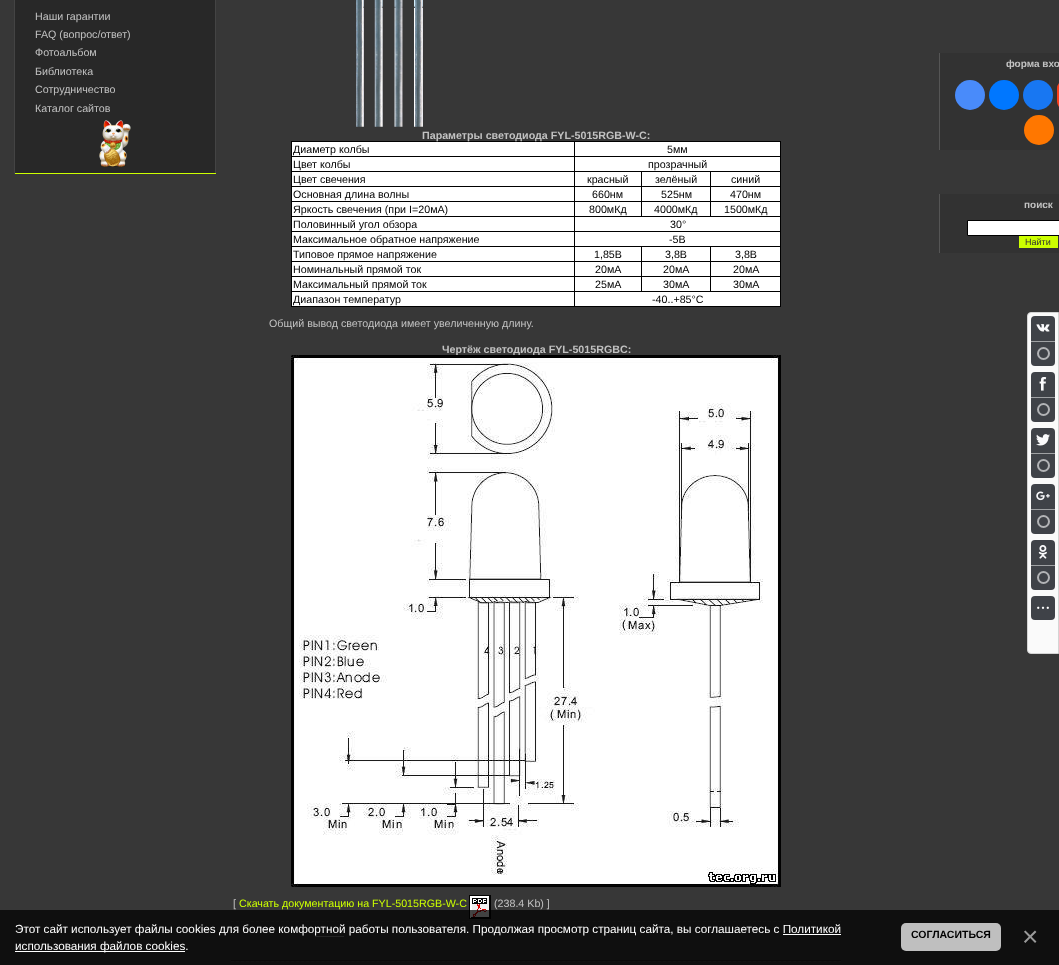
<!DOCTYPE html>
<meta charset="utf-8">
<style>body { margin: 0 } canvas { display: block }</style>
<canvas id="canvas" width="1059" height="965"></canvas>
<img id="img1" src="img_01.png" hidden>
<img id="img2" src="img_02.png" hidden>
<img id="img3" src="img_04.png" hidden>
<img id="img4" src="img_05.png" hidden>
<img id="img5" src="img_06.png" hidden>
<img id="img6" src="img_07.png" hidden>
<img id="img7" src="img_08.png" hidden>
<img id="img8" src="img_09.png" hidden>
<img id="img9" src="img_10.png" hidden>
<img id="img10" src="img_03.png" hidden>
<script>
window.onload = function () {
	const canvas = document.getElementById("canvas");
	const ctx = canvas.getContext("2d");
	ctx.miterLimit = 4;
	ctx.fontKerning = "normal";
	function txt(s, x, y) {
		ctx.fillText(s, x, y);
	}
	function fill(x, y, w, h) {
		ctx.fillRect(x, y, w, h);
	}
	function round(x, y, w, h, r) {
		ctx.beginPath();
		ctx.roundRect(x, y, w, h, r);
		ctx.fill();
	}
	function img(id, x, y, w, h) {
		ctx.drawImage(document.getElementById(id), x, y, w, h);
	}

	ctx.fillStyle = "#373737";
	fill(0, 0, 1059, 965);
	ctx.fillStyle = "#282828";
	fill(15, 0, 200, 173);
	ctx.fillStyle = "#444444";
	fill(215, 0, 1, 174);
	ctx.fillStyle = "#CCFF00";
	fill(14, 173, 202, 1);
	ctx.fillStyle = "#444444";
	fill(14, 0, 1, 174);
	img("img1", 99, 120, 32, 47);
	img("img2", 356, 0, 67, 127);
	ctx.fillStyle = "#FFFFFF";
	fill(292, 142, 282, 14);
	ctx.fillStyle = "#000000";
	fill(574, 141, 207, 1);
	fill(574, 156, 207, 1);
	fill(710, 171, 71, 1);
	fill(710, 186, 71, 1);
	fill(710, 201, 71, 1);
	fill(574, 216, 207, 1);
	fill(710, 201, 1, 16);
	fill(641, 201, 70, 1);
	fill(710, 186, 1, 16);
	fill(641, 186, 70, 1);
	fill(710, 171, 1, 16);
	fill(641, 171, 70, 1);
	fill(641, 201, 1, 16);
	fill(574, 201, 68, 1);
	fill(641, 186, 1, 16);
	fill(574, 186, 68, 1);
	fill(641, 171, 1, 16);
	fill(574, 171, 68, 1);
	fill(574, 231, 207, 1);
	fill(710, 246, 71, 1);
	fill(710, 261, 71, 1);
	fill(710, 276, 71, 1);
	fill(574, 291, 207, 1);
	fill(710, 276, 1, 16);
	fill(641, 276, 70, 1);
	fill(710, 261, 1, 16);
	fill(641, 261, 70, 1);
	fill(710, 246, 1, 16);
	fill(641, 246, 70, 1);
	fill(641, 276, 1, 16);
	fill(574, 276, 68, 1);
	fill(641, 261, 1, 16);
	fill(574, 261, 68, 1);
	fill(641, 246, 1, 16);
	fill(574, 246, 68, 1);
	fill(780, 291, 1, 16);
	fill(574, 306, 207, 1);
	fill(574, 291, 1, 16);
	fill(291, 291, 284, 1);
	fill(574, 276, 1, 16);
	fill(291, 276, 284, 1);
	fill(574, 261, 1, 16);
	fill(291, 261, 284, 1);
	fill(574, 246, 1, 16);
	fill(291, 246, 284, 1);
	fill(574, 231, 1, 16);
	fill(291, 231, 284, 1);
	fill(574, 216, 1, 16);
	fill(291, 216, 284, 1);
	fill(574, 201, 1, 16);
	fill(291, 201, 284, 1);
	fill(574, 186, 1, 16);
	fill(291, 186, 284, 1);
	fill(574, 171, 1, 16);
	fill(291, 171, 284, 1);
	fill(574, 156, 1, 16);
	fill(291, 156, 284, 1);
	fill(574, 141, 1, 16);
	fill(291, 141, 284, 1);
	fill(291, 306, 284, 1);
	fill(291, 291, 1, 16);
	fill(291, 276, 1, 16);
	fill(291, 261, 1, 16);
	fill(291, 246, 1, 16);
	fill(291, 231, 1, 16);
	fill(291, 216, 1, 16);
	fill(291, 201, 1, 16);
	fill(291, 186, 1, 16);
	fill(291, 171, 1, 16);
	fill(291, 156, 1, 16);
	fill(291, 141, 1, 16);
	ctx.fillStyle = "#FFFFFF";
	fill(575, 142, 205, 14);
	ctx.fillStyle = "#000000";
	fill(780, 276, 1, 16);
	fill(780, 261, 1, 16);
	fill(780, 246, 1, 16);
	fill(780, 231, 1, 16);
	fill(780, 216, 1, 16);
	fill(780, 201, 1, 16);
	fill(780, 186, 1, 16);
	fill(780, 171, 1, 16);
	fill(780, 156, 1, 16);
	fill(780, 141, 1, 16);
	ctx.fillStyle = "#FFFFFF";
	fill(292, 157, 282, 14);
	fill(575, 157, 205, 14);
	fill(292, 172, 282, 14);
	fill(575, 172, 66, 14);
	fill(642, 172, 68, 14);
	fill(711, 172, 69, 14);
	fill(292, 187, 282, 14);
	fill(575, 187, 66, 14);
	fill(642, 187, 68, 14);
	fill(711, 187, 69, 14);
	fill(292, 202, 282, 14);
	fill(575, 202, 66, 14);
	fill(642, 202, 68, 14);
	fill(711, 202, 69, 14);
	fill(292, 217, 282, 14);
	fill(575, 217, 205, 14);
	fill(292, 232, 282, 14);
	fill(575, 232, 205, 14);
	fill(292, 247, 282, 14);
	fill(575, 247, 66, 14);
	fill(642, 247, 68, 14);
	fill(711, 247, 69, 14);
	fill(292, 262, 282, 14);
	fill(575, 262, 66, 14);
	fill(642, 262, 68, 14);
	fill(711, 262, 69, 14);
	fill(292, 277, 282, 14);
	fill(575, 277, 66, 14);
	fill(642, 277, 68, 14);
	fill(711, 277, 69, 14);
	fill(292, 292, 282, 14);
	fill(575, 292, 205, 14);
	img("img3", 469, 895, 22, 24);
	ctx.beginPath();
	ctx.moveTo(231, 921.5);
	ctx.lineTo(841, 921.5);
	ctx.strokeStyle = "#444444";
	ctx.setLineDash([3, 2.02]);
	ctx.stroke();
	ctx.fillStyle = "#282828";
	fill(231, 960, 610, 1);
	ctx.fillStyle = "#898989";
	fill(315, 936, 29, 1);
	ctx.beginPath();
	ctx.moveTo(231, 961.5);
	ctx.lineTo(841, 961.5);
	ctx.stroke();
	ctx.fillStyle = "#323232";
	fill(940, 53, 119, 97);
	ctx.fillStyle = "#555555";
	fill(939, 53, 1, 97);
	ctx.fillStyle = "#498BFA";
	ctx.beginPath();
	ctx.arc(970, 95, 15, 0, Math.PI * 2);
	ctx.fill();
	ctx.fillStyle = "#0077FF";
	ctx.beginPath();
	ctx.arc(1004, 95, 15, 0, Math.PI * 2);
	ctx.fill();
	ctx.fillStyle = "#1877F2";
	ctx.beginPath();
	ctx.arc(1038, 95, 15, 0, Math.PI * 2);
	ctx.fill();
	ctx.fillStyle = "#FC3F1D";
	round(1057, 80, 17, 30, 15);
	ctx.fillStyle = "#FF7700";
	ctx.beginPath();
	ctx.arc(1039, 130, 15, 0, Math.PI * 2);
	ctx.fill();
	ctx.fillStyle = "#323232";
	fill(940, 194, 119, 59);
	ctx.fillStyle = "#555555";
	fill(939, 194, 1, 59);
	ctx.fillStyle = "#FFFFFF";
	ctx.beginPath();
	ctx.rect(967.5, 220.5, 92, 15);
	ctx.fill();
	ctx.strokeStyle = "#000000";
	ctx.setLineDash([]);
	ctx.stroke();
	ctx.fillStyle = "#CCFF00";
	fill(1019, 236, 39, 12);
	ctx.fillStyle = "#FAFAFA";
	ctx.beginPath();
	ctx.roundRect(1027.5, 312.5, 31, 341, [3.5, 0, 0, 3.5]);
	ctx.fill();
	ctx.strokeStyle = "#D4D4D4";
	ctx.stroke();
	ctx.fillStyle = "#3F4248";
	round(1031, 316, 24, 50, 4);
	img("img4", 1036, 324, 14, 8);
	ctx.fillStyle = "#9FA1A4";
	fill(1031, 341, 24, 1);
	ctx.beginPath();
	ctx.arc(1043.5, 353.5, 5.5, 0, Math.PI * 2);
	ctx.strokeStyle = "#B2B3B6";
	ctx.lineWidth = 2;
	ctx.stroke();
	ctx.fillStyle = "#3F4248";
	round(1031, 372, 24, 50, 4);
	img("img5", 1039, 377, 8, 14);
	ctx.fillStyle = "#9FA1A4";
	fill(1031, 397, 24, 1);
	ctx.beginPath();
	ctx.arc(1043.5, 409.5, 5.5, 0, Math.PI * 2);
	ctx.stroke();
	ctx.fillStyle = "#3F4248";
	round(1031, 428, 24, 50, 4);
	img("img6", 1036, 434, 14, 12);
	ctx.fillStyle = "#9FA1A4";
	fill(1031, 453, 24, 1);
	ctx.beginPath();
	ctx.arc(1043.5, 465.5, 5.5, 0, Math.PI * 2);
	ctx.stroke();
	ctx.fillStyle = "#3F4248";
	round(1031, 484, 24, 50, 4);
	img("img7", 1036, 491, 14, 10);
	ctx.fillStyle = "#9FA1A4";
	fill(1031, 509, 24, 1);
	ctx.beginPath();
	ctx.arc(1043.5, 521.5, 5.5, 0, Math.PI * 2);
	ctx.stroke();
	ctx.fillStyle = "#3F4248";
	round(1031, 540, 24, 50, 4);
	img("img8", 1038, 545, 9, 14);
	ctx.fillStyle = "#9FA1A4";
	fill(1031, 565, 24, 1);
	ctx.beginPath();
	ctx.arc(1043.5, 577.5, 5.5, 0, Math.PI * 2);
	ctx.stroke();
	ctx.fillStyle = "#3F4248";
	round(1031, 596, 24, 24, 4);
	img("img9", 1037, 606, 12, 3);
	ctx.fillStyle = "rgba(0, 0, 0, 0.73)";
	fill(0, 910, 1059, 55);
	ctx.fillStyle = "#FFFFFF";
	fill(783, 934, 58, 1);
	fill(15, 951, 170, 1);
	ctx.fillStyle = "#BFBFBF";
	round(901, 923, 100, 28, 5);
	ctx.font = "10.7px Liberation Sans";
	ctx.fillStyle = "#C2C2C2";
	txt("Наши гарантии", 35, 20);
	txt("FAQ (вопрос/ответ)", 35, 38);
	txt("Фотоальбом", 35, 56);
	txt("Библиотека", 35, 75);
	txt("Сотрудничество", 35, 93);
	txt("Каталог сайтов", 35, 112);
	ctx.font = "bold 10.7px Liberation Sans";
	txt("Параметры светодиода FYL-5015RGB-W-C:", 422, 139);
	ctx.font = "10.7px Liberation Sans";
	ctx.fillStyle = "#000000";
	txt("Диаметр колбы", 293, 153);
	txt("5мм", 667, 153);
	txt("Цвет колбы", 293, 168);
	txt("прозрачный", 648, 168);
	txt("Цвет свечения", 293, 183);
	txt("красный", 587, 183);
	txt("зелёный", 655, 183);
	txt("синий", 731, 183);
	txt("Основная длина волны", 293, 198);
	txt("660нм", 592, 198);
	txt("525нм", 661, 198);
	txt("470нм", 730, 198);
	txt("Яркость свечения (при I=20мА)", 293, 213);
	txt("800мКд", 589, 213);
	txt("4000мКд", 654, 213);
	txt("1500мКд", 724, 213);
	txt("Половинный угол обзора", 293, 228);
	txt("30°", 670, 228);
	txt("Максимальное обратное напряжение", 293, 243);
	txt("-5В", 669, 243);
	txt("Типовое прямое напряжение", 293, 258);
	txt("1,85В", 594, 258);
	txt("3,8В", 665, 258);
	txt("3,8В", 735, 258);
	txt("Номинальный прямой ток", 293, 273);
	txt("20мА", 595, 273);
	txt("20мА", 663, 273);
	txt("20мА", 733, 273);
	txt("Максимальный прямой ток", 293, 288);
	txt("25мА", 595, 288);
	txt("30мА", 663, 288);
	txt("30мА", 733, 288);
	txt("Диапазон температур", 293, 303);
	txt("-40..+85°C", 652, 303);
	ctx.fillStyle = "#C2C2C2";
	txt("Общий вывод светодиода имеет увеличенную длину.", 269, 327);
	ctx.font = "bold 10.7px Liberation Sans";
	txt("Чертёж светодиода FYL-5015RGBC:", 442, 353);
	img("img10", 291, 355, 490, 532);
	ctx.font = "10.7px Liberation Sans";
	txt("[", 233, 907);
	ctx.fillStyle = "#CCFF00";
	txt("Скачать документацию на FYL-5015RGB-W-C", 239, 907);
	ctx.fillStyle = "#C2C2C2";
	txt("(238.4 Kb) ]", 494, 907);
	ctx.font = "bold 10px Liberation Sans";
	txt("форма вхо", 1006, 67);
	txt("поиск", 1024, 208);
	ctx.font = "9px Liberation Sans";
	ctx.fillStyle = "#323232";
	txt("Найти", 1025, 245);
	ctx.font = "11.73px Liberation Sans";
	ctx.fillStyle = "#FFFFFF";
	txt("Этот сайт использует файлы cookies для более комфортной работы пользователя. Продолжая просмотр страниц сайта, вы соглашаетесь с Политикой", 15, 933);
	txt("использования файлов cookies.", 15, 950);
	ctx.font = "bold 10.5px Liberation Sans";
	ctx.fillStyle = "#000000";
	txt("СОГЛАСИТЬСЯ", 911, 938);
	ctx.font = "28px Liberation Sans";
	ctx.fillStyle = "#999999";
	txt("×", 1022, 946);
};
</script>
